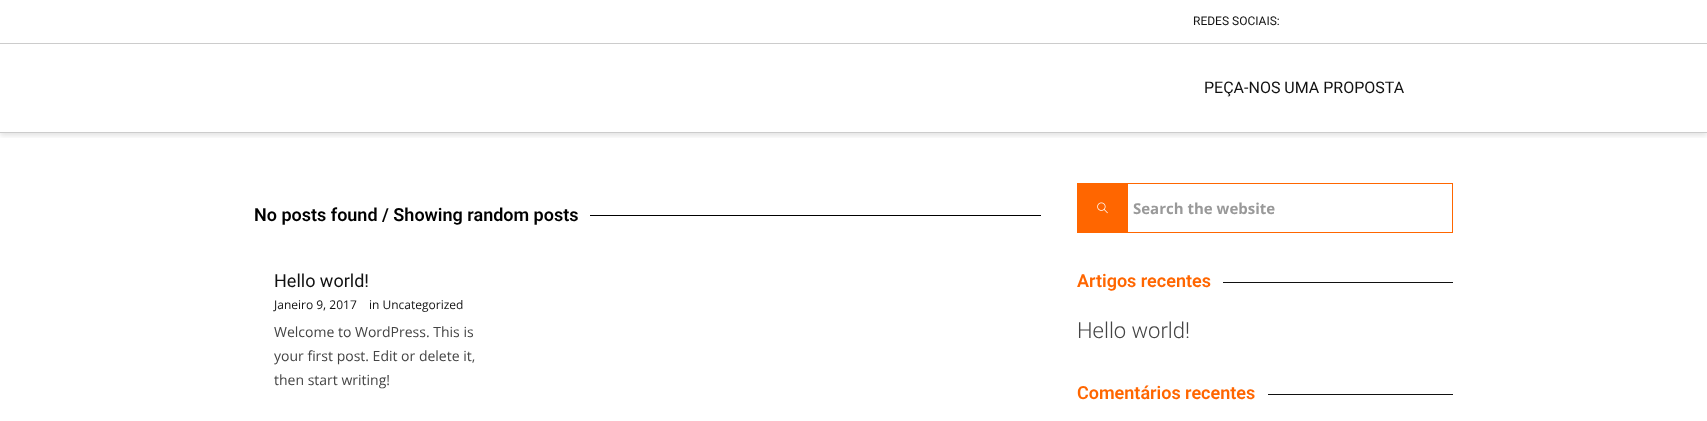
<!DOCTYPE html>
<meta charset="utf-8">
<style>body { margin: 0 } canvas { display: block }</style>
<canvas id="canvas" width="1707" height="421"></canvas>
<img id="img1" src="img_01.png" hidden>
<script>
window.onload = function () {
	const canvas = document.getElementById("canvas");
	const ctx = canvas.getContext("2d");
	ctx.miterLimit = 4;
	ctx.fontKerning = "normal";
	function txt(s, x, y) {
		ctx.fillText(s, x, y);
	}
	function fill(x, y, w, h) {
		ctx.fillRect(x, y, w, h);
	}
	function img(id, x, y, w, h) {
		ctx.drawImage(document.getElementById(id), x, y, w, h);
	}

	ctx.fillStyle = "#FFFFFF";
	fill(0, 0, 1707, 421);
	ctx.save();
	ctx.beginPath();
	ctx.rect(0, 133, 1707, 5);
	ctx.clip();
	ctx.fillStyle = "rgba(0, 0, 0, 0.1)";
	ctx.filter = "blur(2.5px)";
	ctx.beginPath();
	ctx.rect(0, 3, 1707, 133);
	ctx.fill();
	ctx.filter = "none";
	ctx.restore();
	ctx.fillStyle = "#CCCCCC";
	fill(0, 132, 1707, 1);
	fill(0, 43, 1707, 1);
	ctx.fillStyle = "#000000";
	fill(590, 215, 451, 1);
	ctx.fillStyle = "#FF6600";
	fill(1077, 183, 50, 50);
	img("img1", 1097, 202, 11, 12);
	ctx.strokeStyle = "#FF6600";
	ctx.strokeRect(1127.5, 183.5, 325, 49);
	ctx.fillStyle = "#111111";
	fill(1223, 282, 230, 1);
	fill(1268, 394, 185, 1);
	ctx.font = "12px Roboto";
	txt("REDES SOCIAIS:", 1193, 25);
	ctx.font = "16px Roboto";
	txt("PEÇA-NOS UMA PROPOSTA", 1204, 93);
	ctx.font = "600 18px Roboto";
	ctx.fillStyle = "#000000";
	txt("No posts found / Showing random posts", 254, 221);
	ctx.font = "18px Roboto";
	ctx.fillStyle = "#111111";
	txt("Hello world!", 274, 287);
	ctx.font = "12px Open Sans";
	txt("Janeiro 9, 2017", 274, 309);
	txt("in Uncategorized", 369, 309);
	ctx.font = "14px Open Sans";
	ctx.fillStyle = "#444444";
	txt("Welcome to WordPress. This is", 274, 337);
	txt("your first post. Edit or delete it,", 274, 361);
	txt("then start writing!", 274, 385);
	ctx.font = "bold 15px Open Sans";
	ctx.fillStyle = "#999999";
	txt("Search the website", 1133, 214);
	ctx.font = "600 18px Roboto";
	ctx.fillStyle = "#FF6600";
	txt("Artigos recentes", 1077, 287);
	ctx.font = "300 22px Roboto";
	ctx.fillStyle = "#444444";
	txt("Hello world!", 1077, 338);
	ctx.font = "600 18px Roboto";
	ctx.fillStyle = "#FF6600";
	txt("Comentários recentes", 1077, 399);
};
</script>
